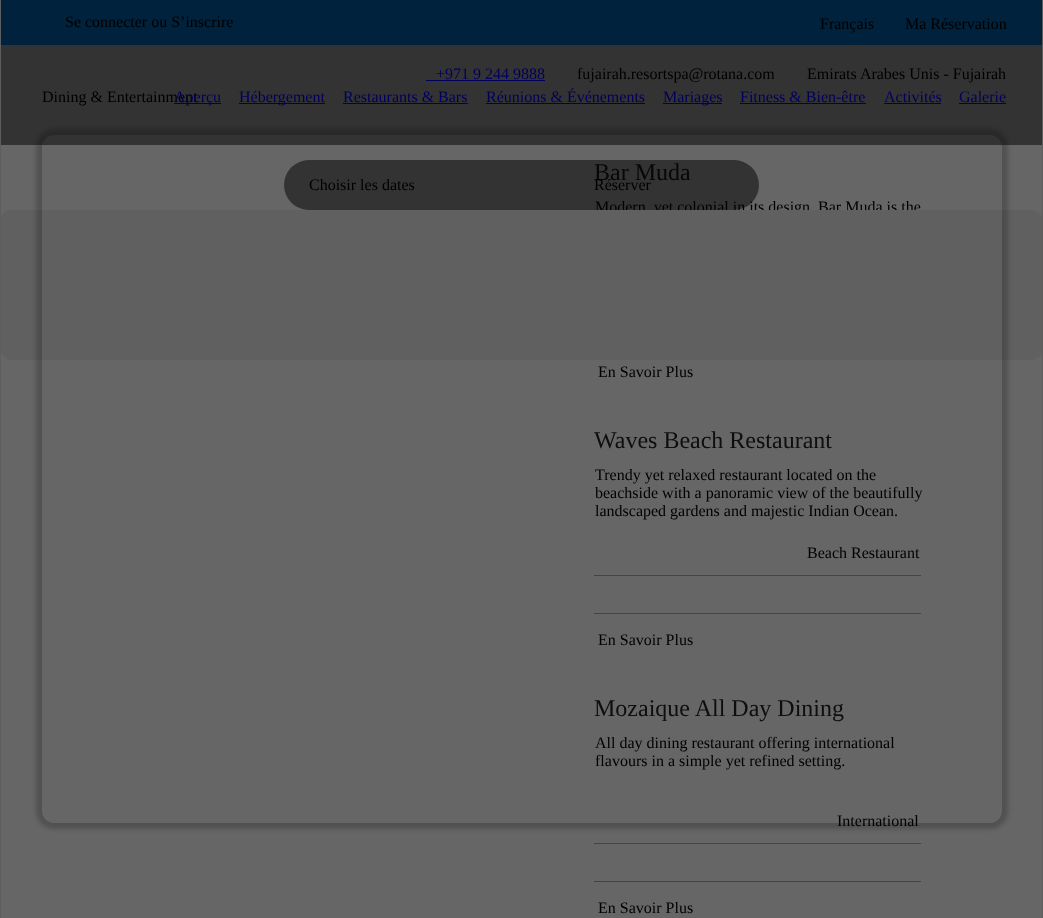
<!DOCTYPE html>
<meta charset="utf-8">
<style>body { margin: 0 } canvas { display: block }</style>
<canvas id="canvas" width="1043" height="918"></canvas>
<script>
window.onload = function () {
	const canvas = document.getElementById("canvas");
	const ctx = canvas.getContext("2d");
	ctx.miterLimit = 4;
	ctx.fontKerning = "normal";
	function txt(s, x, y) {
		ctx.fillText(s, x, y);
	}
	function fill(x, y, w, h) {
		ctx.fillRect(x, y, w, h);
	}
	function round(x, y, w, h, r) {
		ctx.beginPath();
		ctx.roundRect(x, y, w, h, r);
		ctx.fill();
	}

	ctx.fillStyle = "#666666";
	fill(0, 0, 1043, 918);
	ctx.fillStyle = "#333333";
	fill(1, 45, 1041, 100);
	ctx.fillStyle = "#00223C";
	fill(1, 0, 1041, 45);
	ctx.fillStyle = "#00005F";
	fill(426, 80, 119, 1);
	fill(239, 103, 86, 1);
	fill(343, 103, 125, 1);
	fill(486, 103, 159, 1);
	fill(663, 103, 59, 1);
	fill(740, 103, 126, 1);
	fill(884, 103, 57, 1);
	fill(959, 103, 47, 1);
	ctx.fillStyle = "#444444";
	fill(594, 575, 327, 1);
	fill(594, 613, 327, 1);
	fill(594, 843, 327, 1);
	fill(594, 881, 327, 1);
	ctx.font = "16px Liberation Serif";
	ctx.fillStyle = "#000000";
	txt("Se connecter ou S’inscrire", 65, 27);
	txt("Français", 820, 29);
	txt("Ma Réservation", 905, 29);
	ctx.fillStyle = "#00005F";
	txt("+971 9 244 9888", 436, 79);
	ctx.fillStyle = "#000000";
	txt("fujairah.resortspa@rotana.com", 577, 79);
	txt("Emirats Arabes Unis - Fujairah", 807, 79);
	ctx.fillStyle = "#00005F";
	txt("Hébergement", 239, 102);
	txt("Restaurants & Bars", 343, 102);
	txt("Réunions & Événements", 486, 102);
	txt("Mariages", 663, 102);
	txt("Fitness & Bien-être", 740, 102);
	txt("Activités", 884, 102);
	txt("Galerie", 959, 102);
	ctx.fillStyle = "#000000";
	txt("Dining & Entertainment", 42, 102);
	ctx.fillStyle = "#00005F";
	fill(174, 103, 47, 1);
	txt("Aperçu", 174, 102);
	ctx.font = "24px Liberation Serif";
	ctx.fillStyle = "#0E0E0E";
	txt("Bar Muda", 594, 180);
	ctx.font = "16px Liberation Serif";
	ctx.fillStyle = "#000000";
	txt("Modern, yet colonial in its design, Bar Muda is the", 595, 212);
	ctx.fillStyle = "#606060";
	round(0, 210, 1043, 150, 12);
	ctx.fillStyle = "#5E5E5E";
	fill(0, 0, 1, 918);
	fill(1042, 0, 1, 918);
	ctx.fillStyle = "rgba(0, 0, 0, 0.5)";
	round(284, 160, 475, 50, 25);
	ctx.fillStyle = "#000000";
	txt("Réserver", 594, 190);
	txt("Choisir les dates", 309, 190);
	txt("En Savoir Plus", 598, 377);
	ctx.font = "24px Liberation Serif";
	ctx.fillStyle = "#0E0E0E";
	txt("Waves Beach Restaurant", 594, 448);
	ctx.font = "16px Liberation Serif";
	ctx.fillStyle = "#000000";
	txt("Trendy yet relaxed restaurant located on the", 595, 480);
	txt("beachside with a panoramic view of the beautifully", 595, 498);
	txt("landscaped gardens and majestic Indian Ocean.", 595, 516);
	txt("Beach Restaurant", 807, 558);
	txt("En Savoir Plus", 598, 645);
	ctx.font = "24px Liberation Serif";
	ctx.fillStyle = "#0E0E0E";
	txt("Mozaique All Day Dining", 594, 716);
	ctx.font = "16px Liberation Serif";
	ctx.fillStyle = "#000000";
	txt("All day dining restaurant offering international", 595, 748);
	txt("flavours in a simple yet refined setting.", 595, 766);
	txt("International", 837, 826);
	txt("En Savoir Plus", 598, 913);
	ctx.save();
	ctx.beginPath();
	ctx.moveTo(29, 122);
	ctx.lineTo(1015, 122);
	ctx.lineTo(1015, 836);
	ctx.lineTo(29, 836);
	ctx.closePath();
	ctx.moveTo(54, 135);
	ctx.lineTo(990, 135);
	ctx.bezierCurveTo(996.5, 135, 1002, 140.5, 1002, 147);
	ctx.lineTo(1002, 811);
	ctx.bezierCurveTo(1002, 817.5, 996.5, 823, 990, 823);
	ctx.lineTo(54, 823);
	ctx.bezierCurveTo(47.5, 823, 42, 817.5, 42, 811);
	ctx.lineTo(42, 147);
	ctx.bezierCurveTo(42, 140.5, 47.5, 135, 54, 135);
	ctx.closePath();
	ctx.clip("evenodd");
	ctx.fillStyle = "rgba(0, 0, 0, 0.2)";
	ctx.filter = "blur(2px)";
	ctx.beginPath();
	ctx.roundRect(36, 129, 972, 700, 18);
	ctx.fill();
	ctx.filter = "none";
	ctx.restore();
};
</script>
